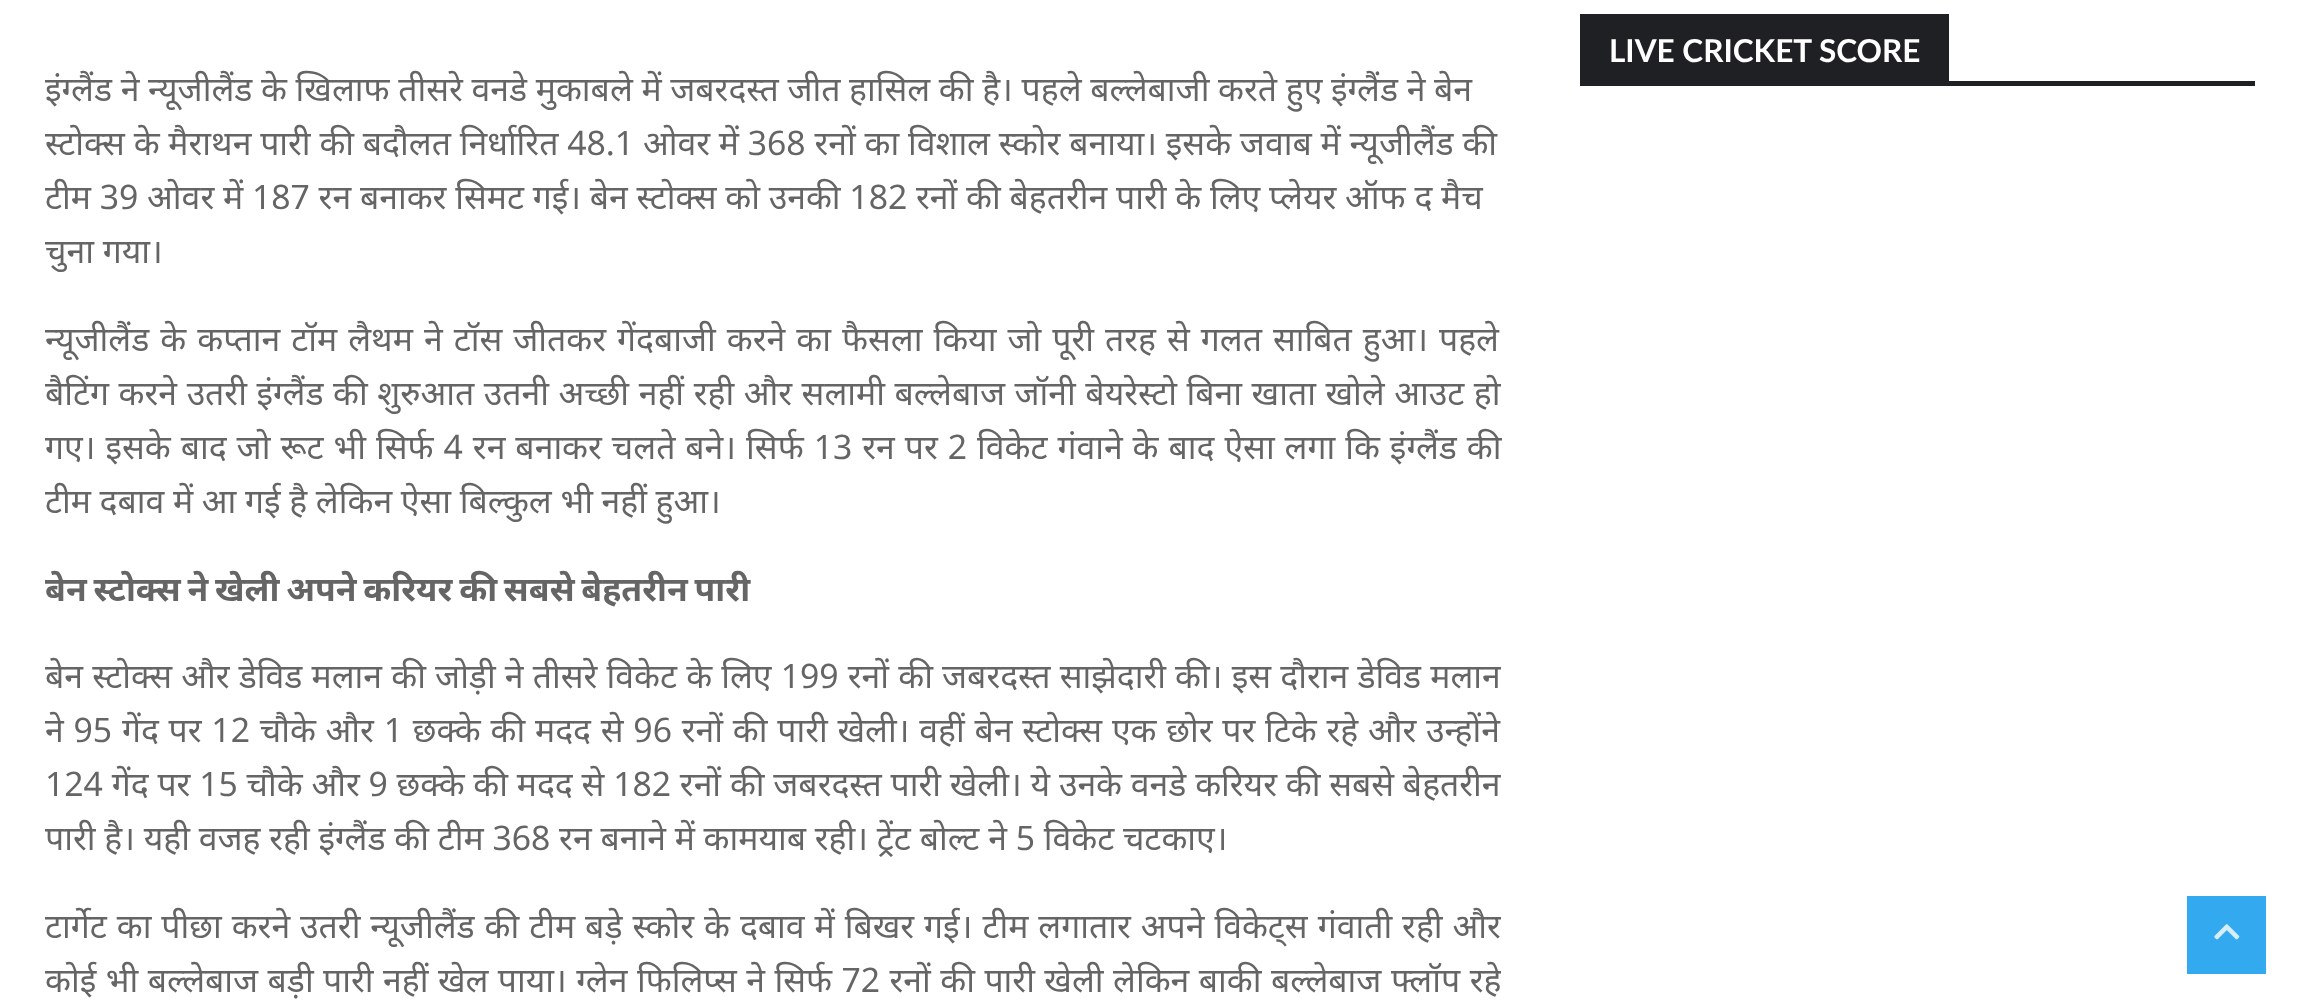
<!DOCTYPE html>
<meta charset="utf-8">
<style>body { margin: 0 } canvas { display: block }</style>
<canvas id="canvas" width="2299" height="1006"></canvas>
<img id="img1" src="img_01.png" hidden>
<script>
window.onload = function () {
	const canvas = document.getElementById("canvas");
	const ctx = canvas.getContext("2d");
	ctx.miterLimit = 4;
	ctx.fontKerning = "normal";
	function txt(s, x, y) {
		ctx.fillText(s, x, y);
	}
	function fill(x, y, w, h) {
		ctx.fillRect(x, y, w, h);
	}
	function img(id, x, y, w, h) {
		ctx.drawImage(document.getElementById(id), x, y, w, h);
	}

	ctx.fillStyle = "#FFFFFF";
	fill(0, 0, 2299, 1006);
	ctx.fillStyle = "#1F2024";
	fill(1580, 81, 675, 5);
	fill(1580, 14, 369, 67);
	ctx.fillStyle = "#33AAF0";
	fill(2187, 896, 79, 78);
	img("img1", 2214, 924, 26, 16);
	ctx.font = "bold 31.5px Lato";
	ctx.fillStyle = "#FFFFFF";
	txt("LIVE CRICKET SCORE", 1609, 62);
	ctx.save();
	ctx.beginPath();
	ctx.rect(45, 0, 1456, 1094);
	ctx.clip();
	ctx.wordSpacing = "-0.1px";
	ctx.font = "33.75px Noto Sans";
	ctx.fillStyle = "#656565";
	txt("इंग्लैंड ने न्यूजीलैंड के खिलाफ तीसरे वनडे मुकाबले में जबरदस्त जीत हासिल की है। पहले बल्लेबाजी करते हुए इंग्लैंड ने बेन", 45, 101);
	ctx.restore();
	ctx.font = "33.75px Noto Sans";
	ctx.fillStyle = "#656565";
	txt("स्टोक्स के मैराथन पारी की बदौलत निर्धारित 48.1 ओवर में 368 रनों का विशाल स्कोर बनाया। इसके जवाब में न्यूजीलैंड की", 45, 155);
	ctx.save();
	ctx.beginPath();
	ctx.rect(45, 0, 1456, 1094);
	ctx.clip();
	txt("टीम 39 ओवर में 187 रन बनाकर सिमट गई। बेन स्टोक्स को उनकी 182 रनों की बेहतरीन पारी के लिए प्लेयर ऑफ द मैच", 45, 209);
	txt("चुना गया।", 45, 263);
	ctx.wordSpacing = "2.25px";
	txt("न्यूजीलैंड के कप्तान टॉम लैथम ने टॉस जीतकर गेंदबाजी करने का फैसला किया जो पूरी तरह से गलत साबित हुआ। पहले", 45, 351);
	ctx.wordSpacing = "0.8px";
	txt("बैटिंग करने उतरी इंग्लैंड की शुरुआत उतनी अच्छी नहीं रही और सलामी बल्लेबाज जॉनी बेयरेस्टो बिना खाता खोले आउट हो", 45, 405);
	ctx.restore();
	ctx.wordSpacing = "1.2px";
	txt("गए। इसके बाद जो रूट भी सिर्फ 4 रन बनाकर चलते बने। सिर्फ 13 रन पर 2 विकेट गंवाने के बाद ऐसा लगा कि इंग्लैंड की", 45, 459);
	ctx.save();
	ctx.beginPath();
	ctx.rect(45, 0, 1456, 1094);
	ctx.clip();
	ctx.wordSpacing = "-0.1px";
	txt("टीम दबाव में आ गई है लेकिन ऐसा बिल्कुल भी नहीं हुआ।", 45, 513);
	ctx.wordSpacing = "-2px";
	ctx.font = "bold 33.75px Noto Sans";
	txt("बेन स्टोक्स ने खेली अपने करियर की सबसे बेहतरीन पारी", 45, 601);
	ctx.wordSpacing = "0.4px";
	ctx.font = "33.75px Noto Sans";
	txt("बेन स्टोक्स और डेविड मलान की जोड़ी ने तीसरे विकेट के लिए 199 रनों की जबरदस्त साझेदारी की। इस दौरान डेविड मलान", 45, 688);
	ctx.wordSpacing = "1px";
	txt("ने 95 गेंद पर 12 चौके और 1 छक्के की मदद से 96 रनों की पारी खेली। वहीं बेन स्टोक्स एक छोर पर टिके रहे और उन्होंने", 45, 742);
	ctx.restore();
	ctx.wordSpacing = "0px";
	txt("124 गेंद पर 15 चौके और 9 छक्के की मदद से 182 रनों की जबरदस्त पारी खेली। ये उनके वनडे करियर की सबसे बेहतरीन", 45, 796);
	txt("पारी है। यही वजह रही इंग्लैंड की टीम 368 रन बनाने में कामयाब रही। ट्रेंट बोल्ट ने 5 विकेट चटकाए।", 45, 850);
	ctx.save();
	ctx.beginPath();
	ctx.rect(45, 0, 1456, 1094);
	ctx.clip();
	ctx.wordSpacing = "1.2px";
	txt("टार्गेट का पीछा करने उतरी न्यूजीलैंड की टीम बड़े स्कोर के दबाव में बिखर गई। टीम लगातार अपने विकेट्स गंवाती रही और", 45, 938);
	ctx.wordSpacing = "0.7px";
	txt("कोई भी बल्लेबाज बड़ी पारी नहीं खेल पाया। ग्लेन फिलिप्स ने सिर्फ 72 रनों की पारी खेली लेकिन बाकी बल्लेबाज फ्लॉप रहे", 45, 992);
	ctx.restore();
};
</script>
